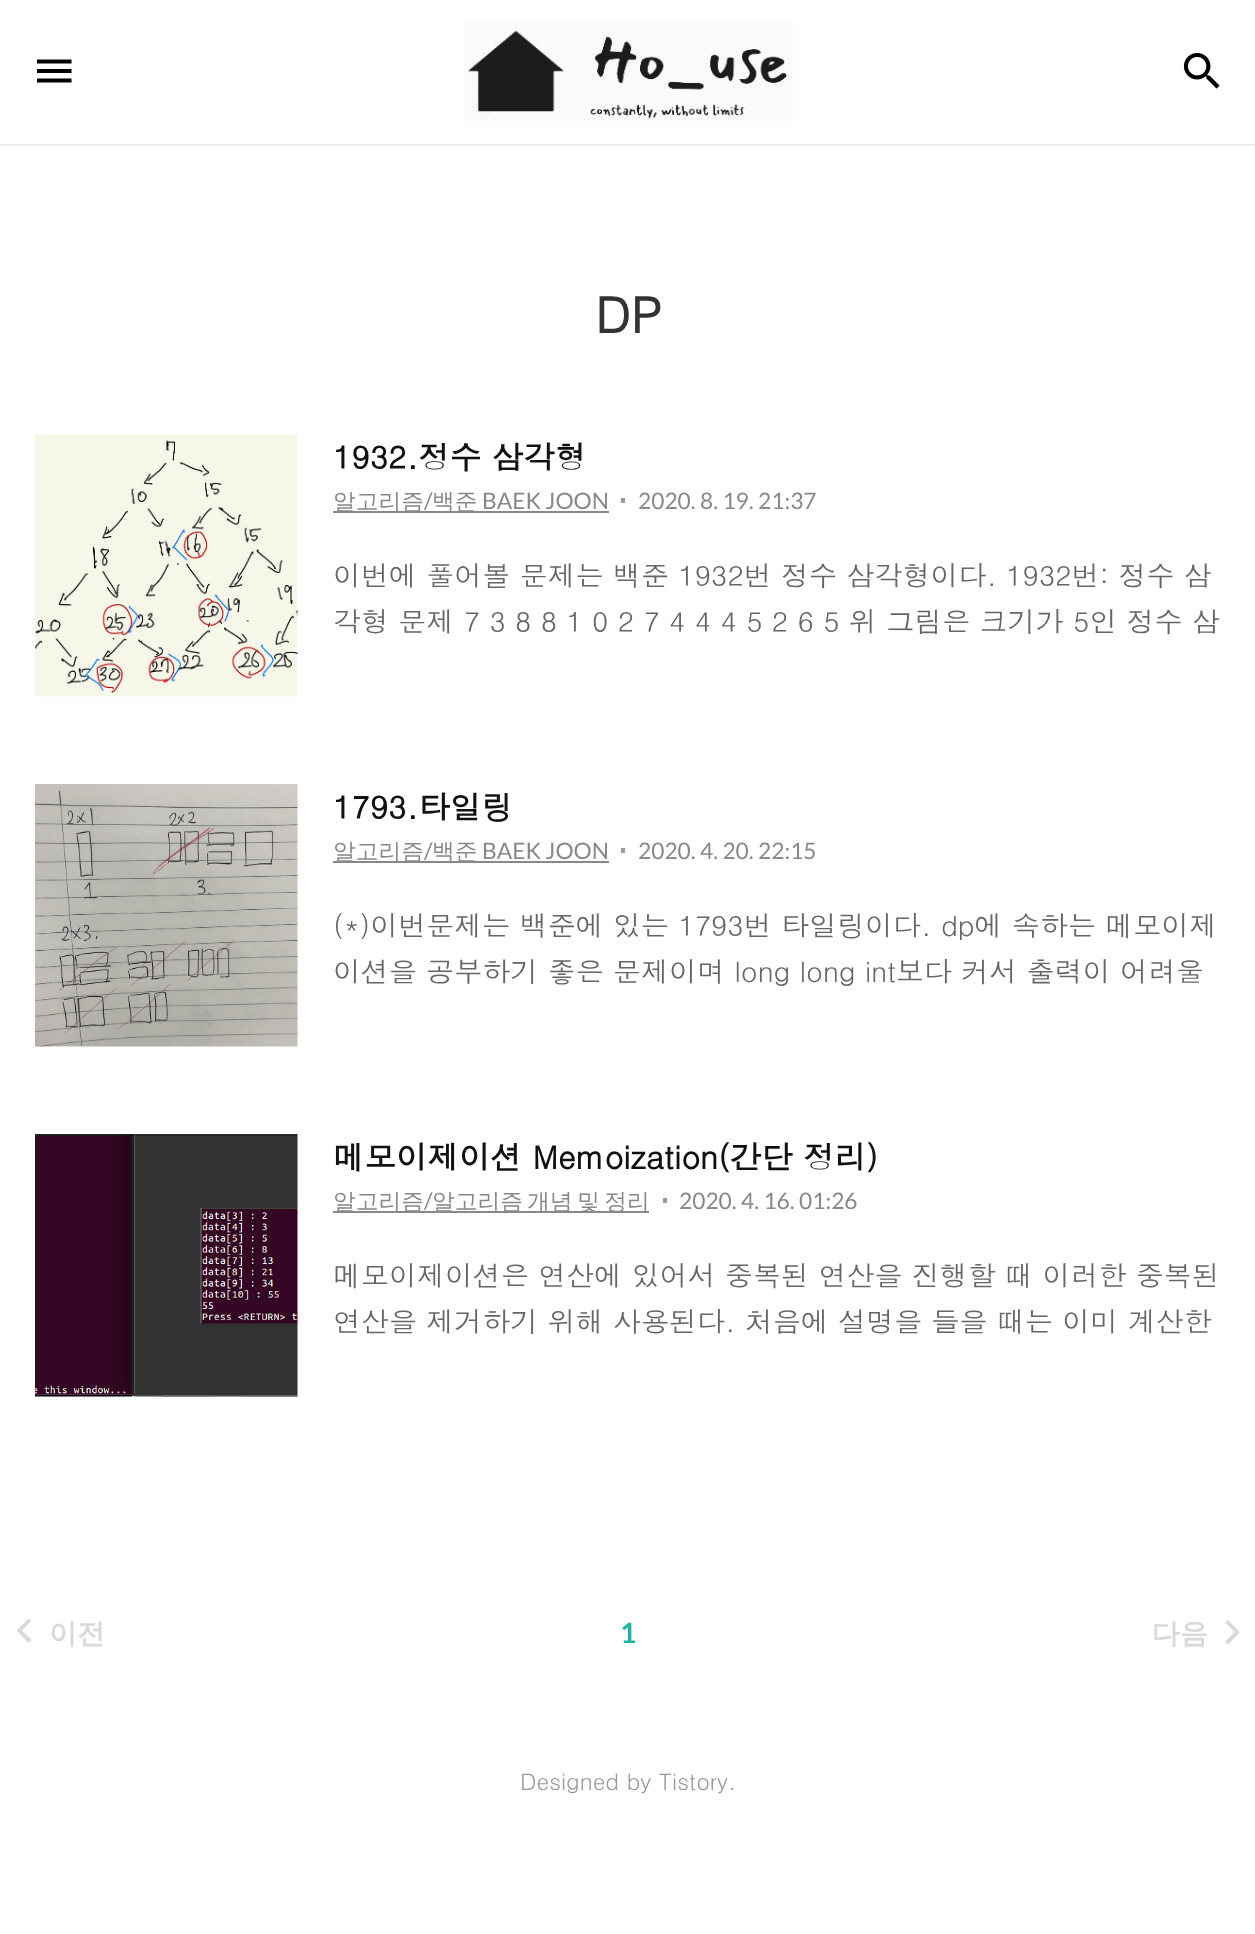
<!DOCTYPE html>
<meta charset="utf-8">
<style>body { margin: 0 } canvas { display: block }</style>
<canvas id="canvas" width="1255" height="1934"></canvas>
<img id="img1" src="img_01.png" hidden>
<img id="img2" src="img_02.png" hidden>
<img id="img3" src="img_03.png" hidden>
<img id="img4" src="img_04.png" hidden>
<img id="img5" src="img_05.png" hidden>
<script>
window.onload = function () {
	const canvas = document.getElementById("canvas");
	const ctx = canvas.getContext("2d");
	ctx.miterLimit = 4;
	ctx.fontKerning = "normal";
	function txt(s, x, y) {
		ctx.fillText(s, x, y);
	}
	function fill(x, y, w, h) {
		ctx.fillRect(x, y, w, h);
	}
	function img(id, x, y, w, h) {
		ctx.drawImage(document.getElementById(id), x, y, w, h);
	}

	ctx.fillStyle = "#FFFFFF";
	fill(0, 0, 1255, 1934);
	ctx.fillStyle = "#EEEEEE";
	fill(0, 144, 1255, 2);
	ctx.fillStyle = "#000000";
	ctx.beginPath();
	ctx.moveTo(37, 82.5);
	ctx.lineTo(71.5, 82.5);
	ctx.lineTo(71.5, 78.5);
	ctx.lineTo(37, 78.5);
	ctx.closePath();
	ctx.moveTo(37, 73);
	ctx.lineTo(71.5, 73);
	ctx.lineTo(71.5, 69);
	ctx.lineTo(37, 69);
	ctx.closePath();
	ctx.moveTo(37, 59.5);
	ctx.lineTo(37, 63.5);
	ctx.lineTo(71.5, 63.5);
	ctx.lineTo(71.5, 59.5);
	ctx.closePath();
	ctx.fill();
	img("img1", 464, 23, 329, 98);
	img("img2", 1183, 52, 37, 37);
	img("img3", 35, 434, 263, 263);
	ctx.fillStyle = "#888888";
	fill(333, 511, 276, 2);
	ctx.fillStyle = "#989898";
	fill(621, 498, 4, 5);
	img("img4", 35, 784, 263, 263);
	ctx.fillStyle = "#888888";
	fill(333, 861, 276, 2);
	ctx.fillStyle = "#989898";
	fill(621, 848, 4, 5);
	img("img5", 35, 1134, 263, 263);
	ctx.fillStyle = "#888888";
	fill(333, 1211, 316, 2);
	ctx.fillStyle = "#989898";
	fill(663, 1198, 4, 5);
	ctx.fillStyle = "#D9D9D9";
	ctx.beginPath();
	ctx.moveTo(31.5, 1621);
	ctx.lineTo(28.5, 1618.5);
	ctx.lineTo(16.5, 1630.5);
	ctx.lineTo(28.5, 1643);
	ctx.lineTo(31.5, 1640);
	ctx.lineTo(22, 1630.5);
	ctx.closePath();
	ctx.fill();
	ctx.beginPath();
	ctx.moveTo(1225, 1641.5);
	ctx.lineTo(1234.5, 1632);
	ctx.lineTo(1225, 1622.5);
	ctx.lineTo(1228, 1620);
	ctx.lineTo(1240, 1632);
	ctx.lineTo(1228, 1644.5);
	ctx.closePath();
	ctx.fill();
	ctx.font = "bold 49px Dotum";
	ctx.fillStyle = "#333333";
	txt("DP", 595, 333);
	ctx.font = "bold 31.5px Dotum";
	ctx.fillStyle = "#111111";
	txt("1932.정수 삼각형", 333, 469);
	ctx.font = "500 22.75px WenQuanYi Zen Hei";
	ctx.fillStyle = "#888888";
	txt("알고리즘", 333, 509);
	ctx.font = "22.75px Lato";
	txt("/", 424, 509);
	ctx.font = "500 22.75px WenQuanYi Zen Hei";
	txt("백준", 432, 509);
	ctx.font = "22.75px Lato";
	txt("BAEK JOON", 482, 509);
	txt("2020. 8. 19. 21:37", 638, 509);
	ctx.font = "28px Dotum";
	ctx.fillStyle = "#666666";
	txt("이번에 풀어볼 문제는 백준 1932번 정수 삼각형이다. 1932번: 정수 삼", 333, 586);
	txt("각형 문제 7 3 8 8 1 0 2 7 4 4 4 5 2 6 5 위 그림은 크기가 5인 정수 삼", 333, 632);
	ctx.font = "bold 31.5px Dotum";
	ctx.fillStyle = "#111111";
	txt("1793.타일링", 333, 819);
	ctx.font = "500 22.75px WenQuanYi Zen Hei";
	ctx.fillStyle = "#888888";
	txt("알고리즘", 333, 859);
	ctx.font = "22.75px Lato";
	txt("/", 424, 859);
	ctx.font = "500 22.75px WenQuanYi Zen Hei";
	txt("백준", 432, 859);
	ctx.font = "22.75px Lato";
	txt("BAEK JOON", 482, 859);
	txt("2020. 4. 20. 22:15", 638, 859);
	ctx.font = "28px Dotum";
	ctx.fillStyle = "#666666";
	txt("(*)이번문제는 백준에 있는 1793번 타일링이다. dp에 속하는 메모이제", 333, 936);
	txt("이션을 공부하기 좋은 문제이며 long long int보다 커서 출력이 어려울", 333, 982);
	ctx.font = "bold 31.5px Dotum";
	ctx.fillStyle = "#111111";
	txt("메모이제이션 Memoization(간단 정리)", 333, 1169);
	ctx.font = "500 22.75px WenQuanYi Zen Hei";
	ctx.fillStyle = "#888888";
	txt("알고리즘", 333, 1209);
	ctx.font = "22.75px Lato";
	txt("/", 424, 1209);
	ctx.wordSpacing = "-2.5px";
	ctx.font = "500 22.75px WenQuanYi Zen Hei";
	txt("알고리즘 개념 및 정리", 432, 1209);
	ctx.wordSpacing = "0px";
	ctx.font = "22.75px Lato";
	txt("2020. 4. 16. 01:26", 679, 1209);
	ctx.font = "28px Dotum";
	ctx.fillStyle = "#666666";
	txt("메모이제이션은 연산에 있어서 중복된 연산을 진행할 때 이러한 중복된", 333, 1286);
	txt("연산을 제거하기 위해 사용된다. 처음에 설명을 들을 때는 이미 계산한", 333, 1332);
	ctx.font = "bold 28px WenQuanYi Zen Hei";
	ctx.fillStyle = "#D9D9D9";
	txt("이전", 49, 1643);
	ctx.font = "bold 28px Lato";
	ctx.fillStyle = "#1EB49F";
	txt("1", 620, 1643);
	ctx.font = "bold 28px WenQuanYi Zen Hei";
	ctx.fillStyle = "#D9D9D9";
	txt("다음", 1152, 1643);
	ctx.font = "22.75px Dotum";
	ctx.fillStyle = "#999999";
	txt("Designed by Tistory.", 520, 1790);
};
</script>
